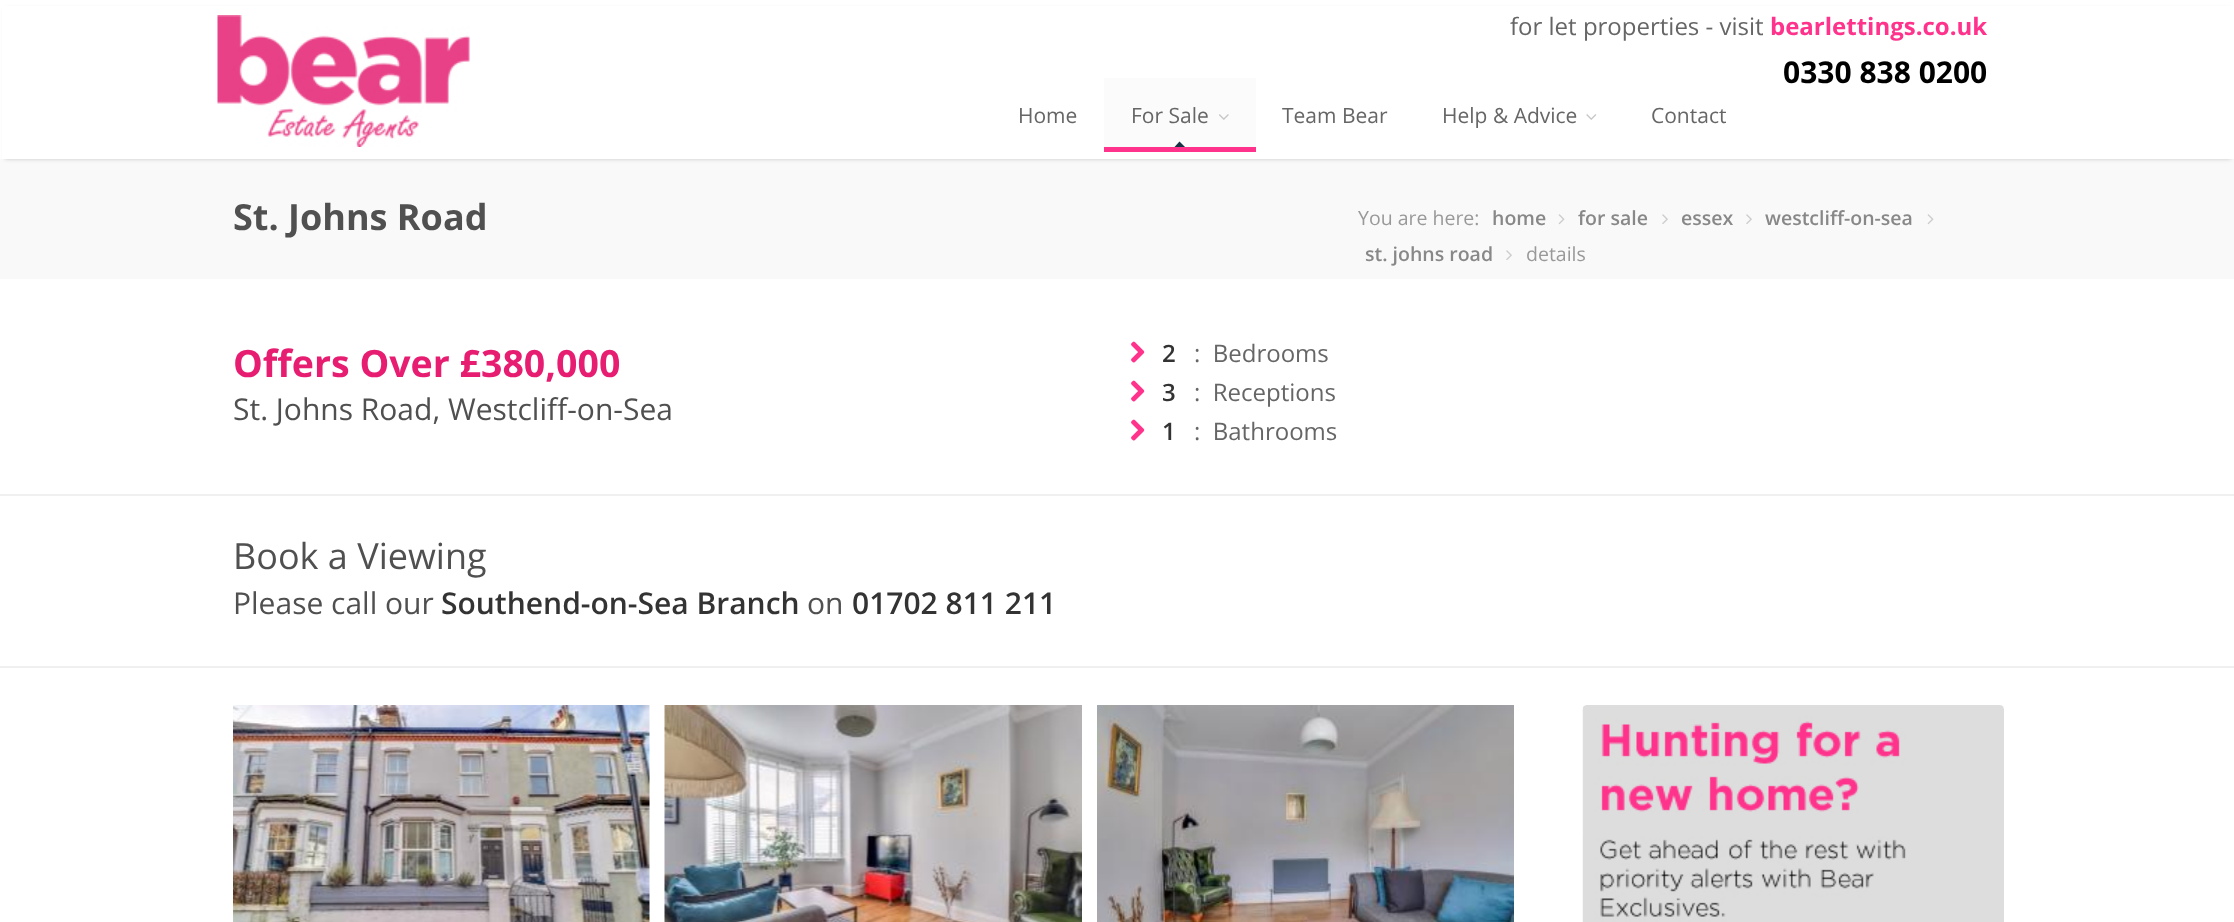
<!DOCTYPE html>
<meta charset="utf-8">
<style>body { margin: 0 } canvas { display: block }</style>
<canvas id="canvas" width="2234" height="922"></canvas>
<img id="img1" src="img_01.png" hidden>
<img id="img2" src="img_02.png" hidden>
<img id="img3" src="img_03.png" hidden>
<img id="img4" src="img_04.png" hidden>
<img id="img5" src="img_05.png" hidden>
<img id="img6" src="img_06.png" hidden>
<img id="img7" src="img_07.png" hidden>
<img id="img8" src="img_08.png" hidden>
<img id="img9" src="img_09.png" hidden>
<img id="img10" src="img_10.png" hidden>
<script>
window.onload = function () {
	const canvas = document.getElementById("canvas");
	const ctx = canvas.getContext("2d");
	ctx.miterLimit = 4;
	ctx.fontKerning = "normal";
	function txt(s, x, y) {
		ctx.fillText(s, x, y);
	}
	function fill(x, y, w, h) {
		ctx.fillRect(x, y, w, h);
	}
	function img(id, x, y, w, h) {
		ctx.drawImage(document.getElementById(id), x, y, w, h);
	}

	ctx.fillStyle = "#FFFFFF";
	fill(0, 0, 2234, 922);
	ctx.fillStyle = "#F9F9F9";
	fill(0, 159, 2234, 120);
	ctx.fillStyle = "rgba(0, 0, 0, 0.2)";
	ctx.filter = "blur(2px)";
	ctx.beginPath();
	ctx.rect(5, 9, 2226, 150);
	ctx.fill();
	ctx.filter = "none";
	ctx.fillStyle = "#FFFFFF";
	fill(2, 6, 2232, 153);
	img("img1", 217, 15, 253, 132);
	ctx.fillStyle = "#FBFBFB";
	fill(1104, 78, 152, 69);
	ctx.fillStyle = "#FF328C";
	fill(1104, 147, 152, 5);
	img("img2", 1219, 114, 10, 6);
	ctx.save();
	ctx.beginPath();
	ctx.rect(1104, 78, 152, 69);
	ctx.clip();
	ctx.fillStyle = "#173344";
	ctx.beginPath();
	ctx.moveTo(1179.5, 141.5);
	ctx.lineTo(1185, 147);
	ctx.lineTo(1179.5, 152.5);
	ctx.lineTo(1174.5, 147);
	ctx.closePath();
	ctx.fill();
	ctx.restore();
	img("img3", 1586, 114, 11, 6);
	img("img4", 1558, 214, 7, 11);
	img("img5", 1662, 214, 6, 10);
	img("img5", 1746, 214, 6, 10);
	img("img4", 1927, 214, 7, 11);
	img("img5", 1506, 250, 6, 10);
	img("img6", 1131, 341, 14, 22);
	img("img6", 1131, 380, 14, 22);
	img("img6", 1131, 419, 14, 22);
	ctx.fillStyle = "#F0F0F0";
	fill(0, 494, 2234, 2);
	fill(0, 666, 2234, 2);
	img("img7", 233, 705, 417, 217);
	img("img8", 664, 705, 418, 217);
	img("img9", 1097, 705, 417, 217);
	img("img10", 1582, 705, 422, 217);
	ctx.font = "24px Open Sans";
	ctx.fillStyle = "#666666";
	txt("for let properties - visit", 1510, 35);
	ctx.font = "bold 24px Open Sans";
	ctx.fillStyle = "#FF328C";
	txt("bearlettings.co.uk", 1770, 35);
	ctx.font = "bold 30px Open Sans";
	ctx.fillStyle = "#000000";
	txt("0330 838 0200", 1783, 83);
	ctx.font = "21px Open Sans";
	ctx.fillStyle = "#666666";
	txt("Home", 1018, 123);
	txt("For Sale", 1131, 123);
	txt("Team Bear", 1282, 123);
	txt("Help & Advice", 1442, 123);
	txt("Contact", 1651, 123);
	ctx.font = "bold 36px Open Sans";
	ctx.fillStyle = "#505050";
	txt("St. Johns Road", 233, 230);
	ctx.font = "19.5px Open Sans";
	ctx.fillStyle = "#999999";
	txt("You are here:", 1358, 225);
	ctx.font = "600 19.5px Open Sans";
	ctx.fillStyle = "#888888";
	txt("home", 1492, 225);
	txt("for sale", 1578, 225);
	txt("essex", 1681, 225);
	txt("westcliff-on-sea", 1765, 225);
	txt("st. johns road", 1365, 261);
	ctx.font = "19.5px Open Sans";
	ctx.fillStyle = "#999999";
	txt("details", 1526, 261);
	ctx.font = "bold 37.5px Open Sans";
	ctx.fillStyle = "#E71D72";
	txt("Offers Over £380,000", 233, 377);
	ctx.font = "30px Open Sans";
	ctx.fillStyle = "#505050";
	txt("St. Johns Road, Westcliff-on-Sea", 233, 420);
	ctx.font = "600 24px Open Sans";
	ctx.fillStyle = "#333333";
	txt("2", 1162, 362);
	ctx.font = "24px Open Sans";
	ctx.fillStyle = "#666666";
	txt(":  Bedrooms", 1194, 362);
	ctx.font = "600 24px Open Sans";
	ctx.fillStyle = "#333333";
	txt("3", 1162, 401);
	ctx.font = "24px Open Sans";
	ctx.fillStyle = "#666666";
	txt(":  Receptions", 1194, 401);
	ctx.font = "600 24px Open Sans";
	ctx.fillStyle = "#333333";
	txt("1", 1162, 440);
	ctx.font = "24px Open Sans";
	ctx.fillStyle = "#666666";
	txt(":  Bathrooms", 1194, 440);
	ctx.font = "36px Open Sans";
	ctx.fillStyle = "#505050";
	txt("Book a Viewing", 233, 569);
	ctx.font = "30px Open Sans";
	txt("Please call our", 233, 614);
	ctx.font = "600 30px Open Sans";
	ctx.fillStyle = "#333333";
	txt("Southend-on-Sea Branch", 441, 614);
	ctx.font = "30px Open Sans";
	ctx.fillStyle = "#505050";
	txt("on", 807, 614);
	ctx.font = "600 30px Open Sans";
	ctx.fillStyle = "#333333";
	txt("01702 811 211", 852, 614);
};
</script>
